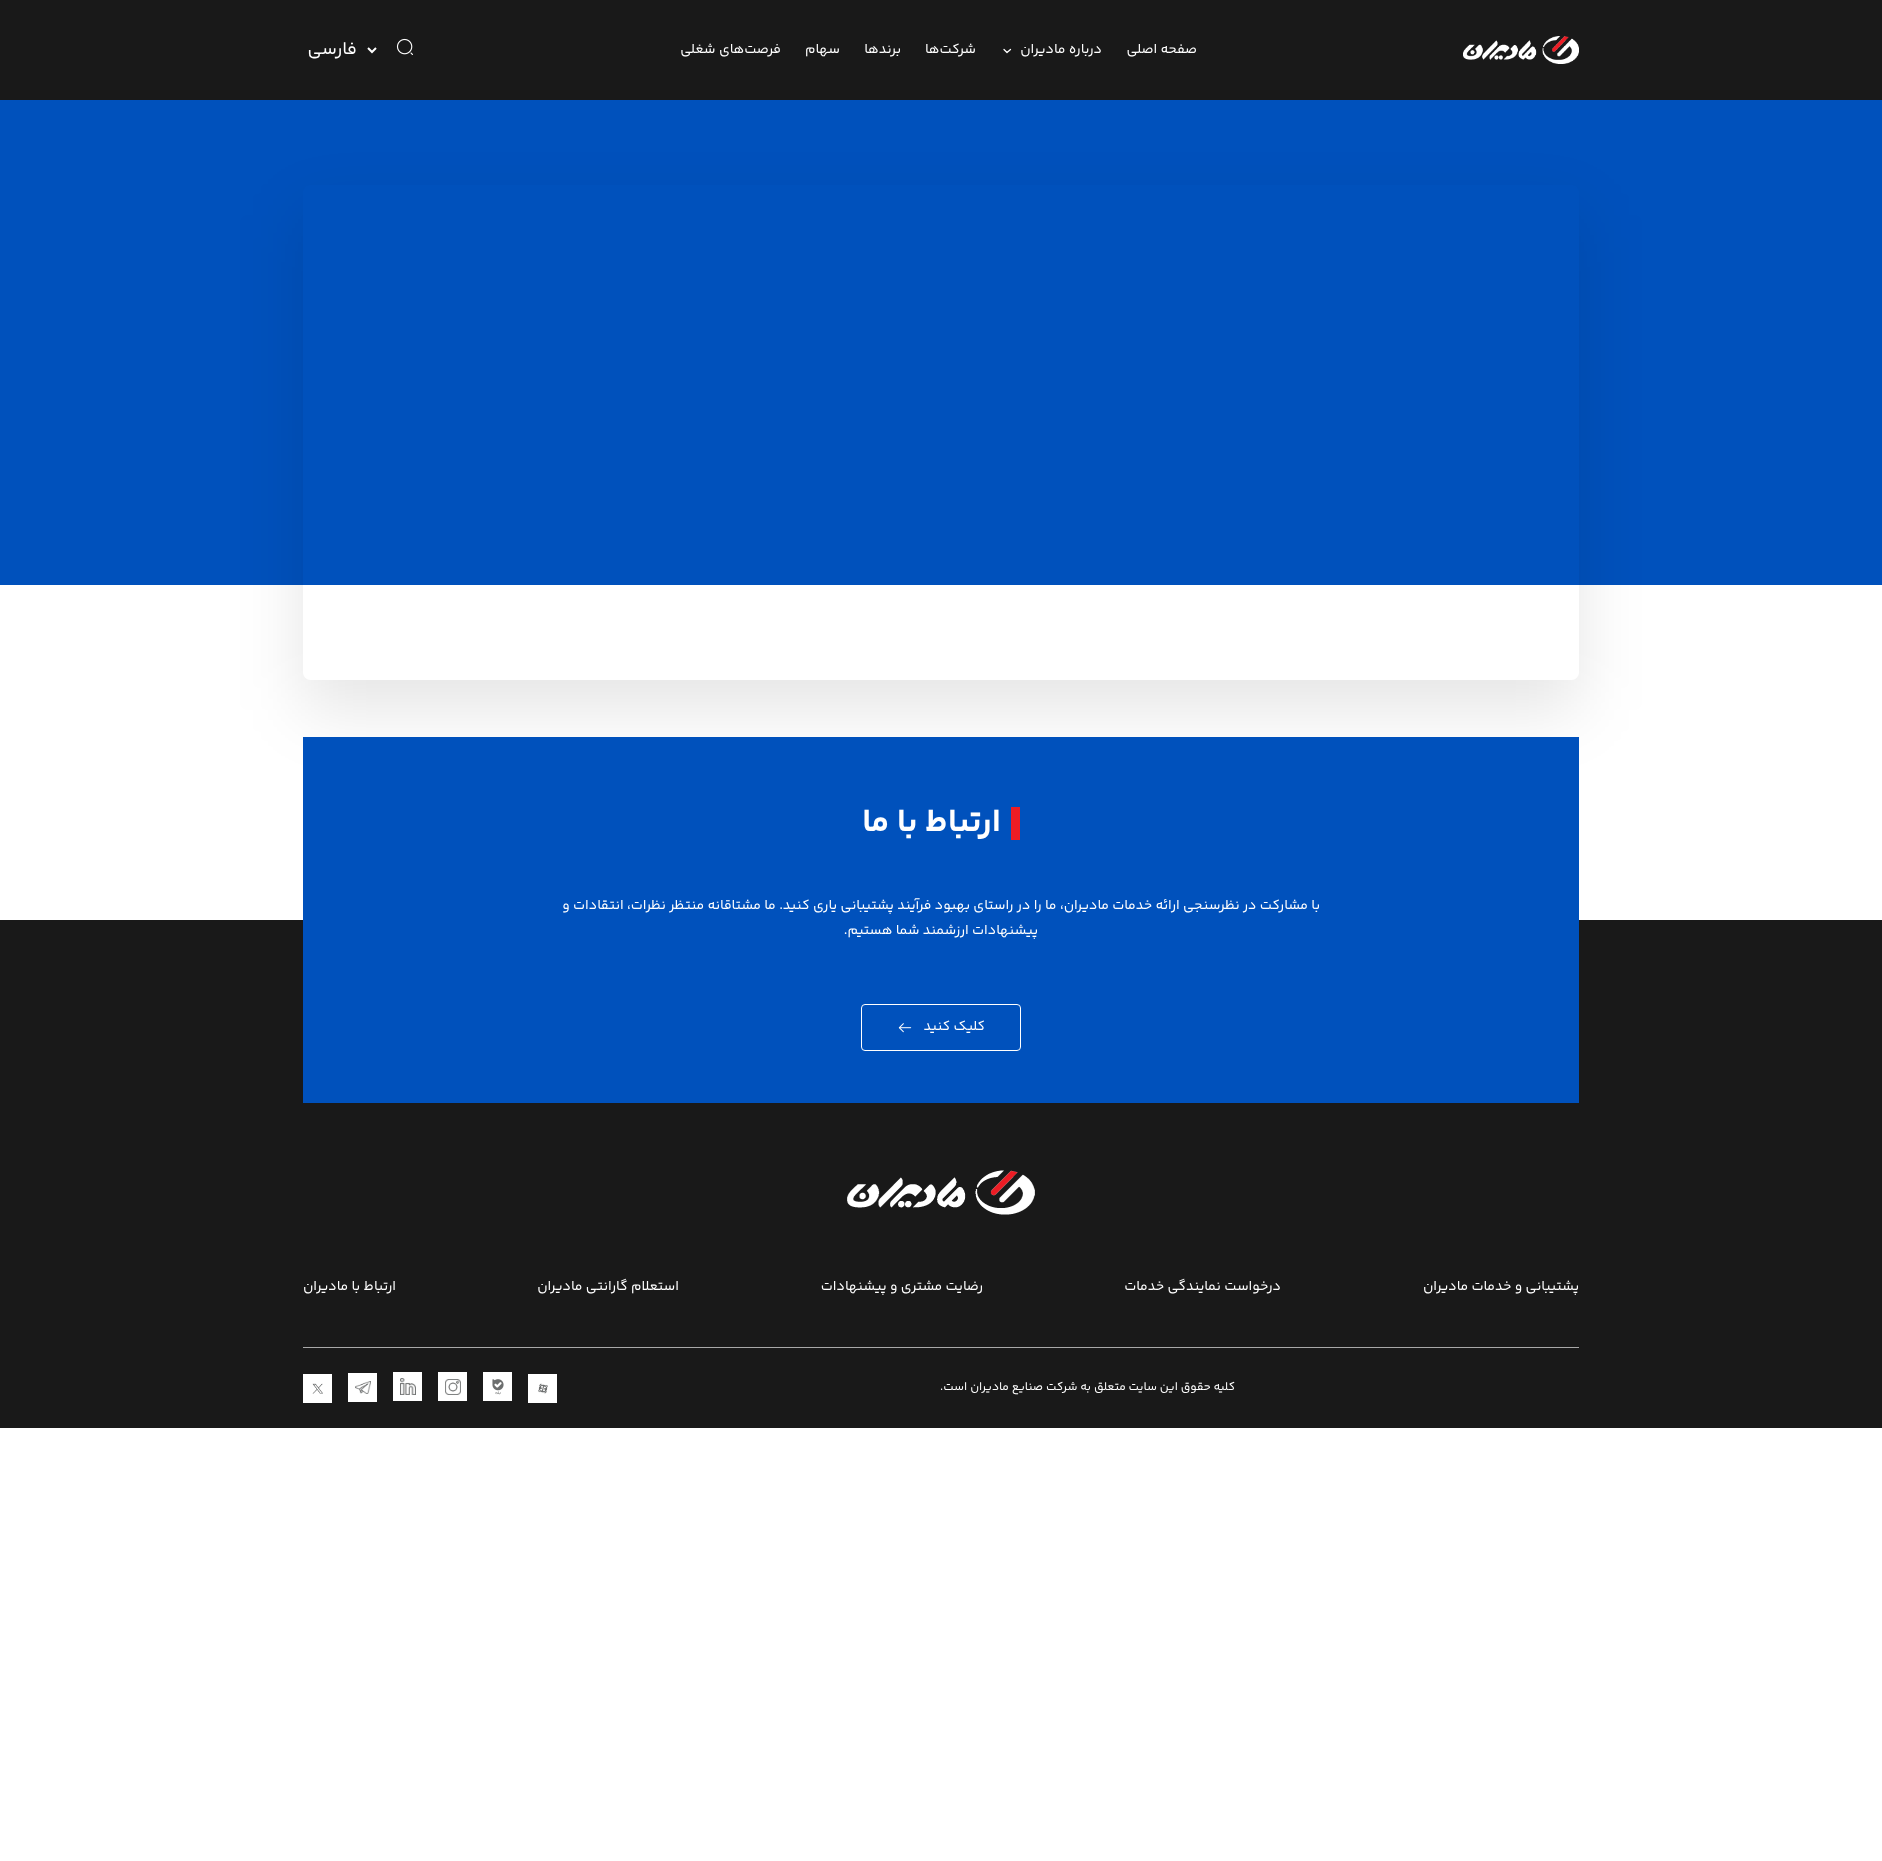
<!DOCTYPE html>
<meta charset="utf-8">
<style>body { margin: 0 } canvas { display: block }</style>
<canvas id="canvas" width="1882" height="1861"></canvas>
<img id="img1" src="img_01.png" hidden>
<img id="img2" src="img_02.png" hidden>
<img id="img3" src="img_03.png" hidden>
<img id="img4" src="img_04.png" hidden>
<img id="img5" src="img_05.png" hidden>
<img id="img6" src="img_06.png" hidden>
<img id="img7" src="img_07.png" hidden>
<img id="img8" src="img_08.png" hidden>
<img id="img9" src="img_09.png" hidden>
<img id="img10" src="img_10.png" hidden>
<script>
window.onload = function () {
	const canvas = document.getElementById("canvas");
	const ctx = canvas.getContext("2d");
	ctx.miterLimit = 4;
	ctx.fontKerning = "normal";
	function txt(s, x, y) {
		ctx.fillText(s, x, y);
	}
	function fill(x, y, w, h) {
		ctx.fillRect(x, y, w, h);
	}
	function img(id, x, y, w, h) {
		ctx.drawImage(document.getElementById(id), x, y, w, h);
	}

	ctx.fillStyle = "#FFFFFF";
	fill(0, 0, 1882, 1861);
	ctx.fillStyle = "#191919";
	fill(0, 0, 1882, 100);
	img("img1", 1463, 36, 116, 28);
	ctx.beginPath();
	ctx.moveTo(1010.5, 49.5);
	ctx.lineTo(1007, 52.5);
	ctx.lineTo(1004, 49.5);
	ctx.strokeStyle = "#FFFFFF";
	ctx.lineWidth = 1.3;
	ctx.lineCap = "round";
	ctx.lineJoin = "round";
	ctx.stroke();
	img("img2", 396, 38, 17, 17);
	ctx.beginPath();
	ctx.moveTo(368, 48);
	ctx.lineTo(372, 52);
	ctx.lineTo(376, 48);
	ctx.lineWidth = 2;
	ctx.lineCap = "butt";
	ctx.lineJoin = "miter";
	ctx.stroke();
	ctx.fillStyle = "#0051BC";
	fill(0, 100, 1882, 485);
	ctx.save();
	ctx.beginPath();
	ctx.moveTo(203, 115);
	ctx.lineTo(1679, 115);
	ctx.lineTo(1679, 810);
	ctx.lineTo(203, 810);
	ctx.closePath();
	ctx.moveTo(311, 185);
	ctx.lineTo(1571, 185);
	ctx.bezierCurveTo(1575.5, 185, 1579, 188.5, 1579, 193);
	ctx.lineTo(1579, 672);
	ctx.bezierCurveTo(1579, 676.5, 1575.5, 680, 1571, 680);
	ctx.lineTo(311, 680);
	ctx.bezierCurveTo(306.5, 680, 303, 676.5, 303, 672);
	ctx.lineTo(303, 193);
	ctx.bezierCurveTo(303, 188.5, 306.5, 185, 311, 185);
	ctx.closePath();
	ctx.clip("evenodd");
	ctx.fillStyle = "rgba(0, 0, 0, 0.1)";
	ctx.filter = "blur(33px)";
	ctx.beginPath();
	ctx.roundRect(303, 215, 1276, 495, 8);
	ctx.fill();
	ctx.filter = "none";
	ctx.restore();
	ctx.fillStyle = "#191919";
	fill(0, 920, 1882, 508);
	ctx.fillStyle = "#0051BC";
	fill(303, 737, 1276, 366);
	ctx.fillStyle = "#ED1C24";
	fill(1011, 807, 9, 33);
	ctx.beginPath();
	ctx.roundRect(861.5, 1004.5, 159, 46, 3.5);
	ctx.lineWidth = 1;
	ctx.stroke();
	img("img3", 898, 1023, 14, 10);
	img("img4", 847, 1170, 188, 45);
	ctx.fillStyle = "#A8A8A8";
	fill(303, 1347, 1276, 1);
	ctx.fillStyle = "#FFFFFF";
	fill(528, 1374, 29, 29);
	img("img5", 538, 1383, 10, 11);
	fill(483, 1372, 29, 29);
	img("img6", 492, 1379, 12, 16);
	fill(438, 1372, 29, 29);
	img("img7", 445, 1379, 16, 16);
	fill(393, 1372, 29, 29);
	img("img8", 400, 1378, 16, 17);
	fill(348, 1373, 29, 29);
	img("img9", 355, 1381, 16, 13);
	fill(303, 1374, 29, 29);
	img("img10", 312, 1383, 11, 11);
	ctx.direction = "rtl";
	ctx.font = "14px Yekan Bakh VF";
	txt("صفحه اصلی", 1197, 53);
	txt("درباره مادیران", 1102, 53);
	txt("شرکت‌ها", 976, 53);
	txt("برندها", 901, 53);
	txt("سهام", 840, 53);
	txt("فرصت‌های شغلی", 781, 53);
	ctx.font = "18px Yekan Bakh";
	txt("فارسی", 357, 54);
	ctx.font = "bold 33px Yekan Bakh VF";
	txt("ارتباط با ما", 1001, 831);
	ctx.font = "14px Yekan Bakh VF";
	txt("با مشارکت در نظرسنجی ارائه خدمات مادیران، ما را در راستای بهبود فرآیند پشتیبانی یاری کنید. ما مشتاقانه منتظر نظرات، انتقادات و", 1320, 909);
	txt("پیشنهادات ارزشمند شما هستیم.", 1038, 934);
	txt("کلیک کنید", 985, 1030);
	txt("پشتیبانی و خدمات مادیران", 1579, 1290);
	txt("درخواست نمایندگی خدمات", 1281, 1290);
	txt("رضایت مشتری و پیشنهادات", 983, 1290);
	txt("استعلام گارانتی مادیران", 679, 1290);
	txt("ارتباط با مادیران", 396, 1290);
	ctx.font = "12px Yekan Bakh VF";
	txt("کلیه حقوق این سایت متعلق به شرکت صنایع مادیران است.", 1235, 1390);
};
</script>
